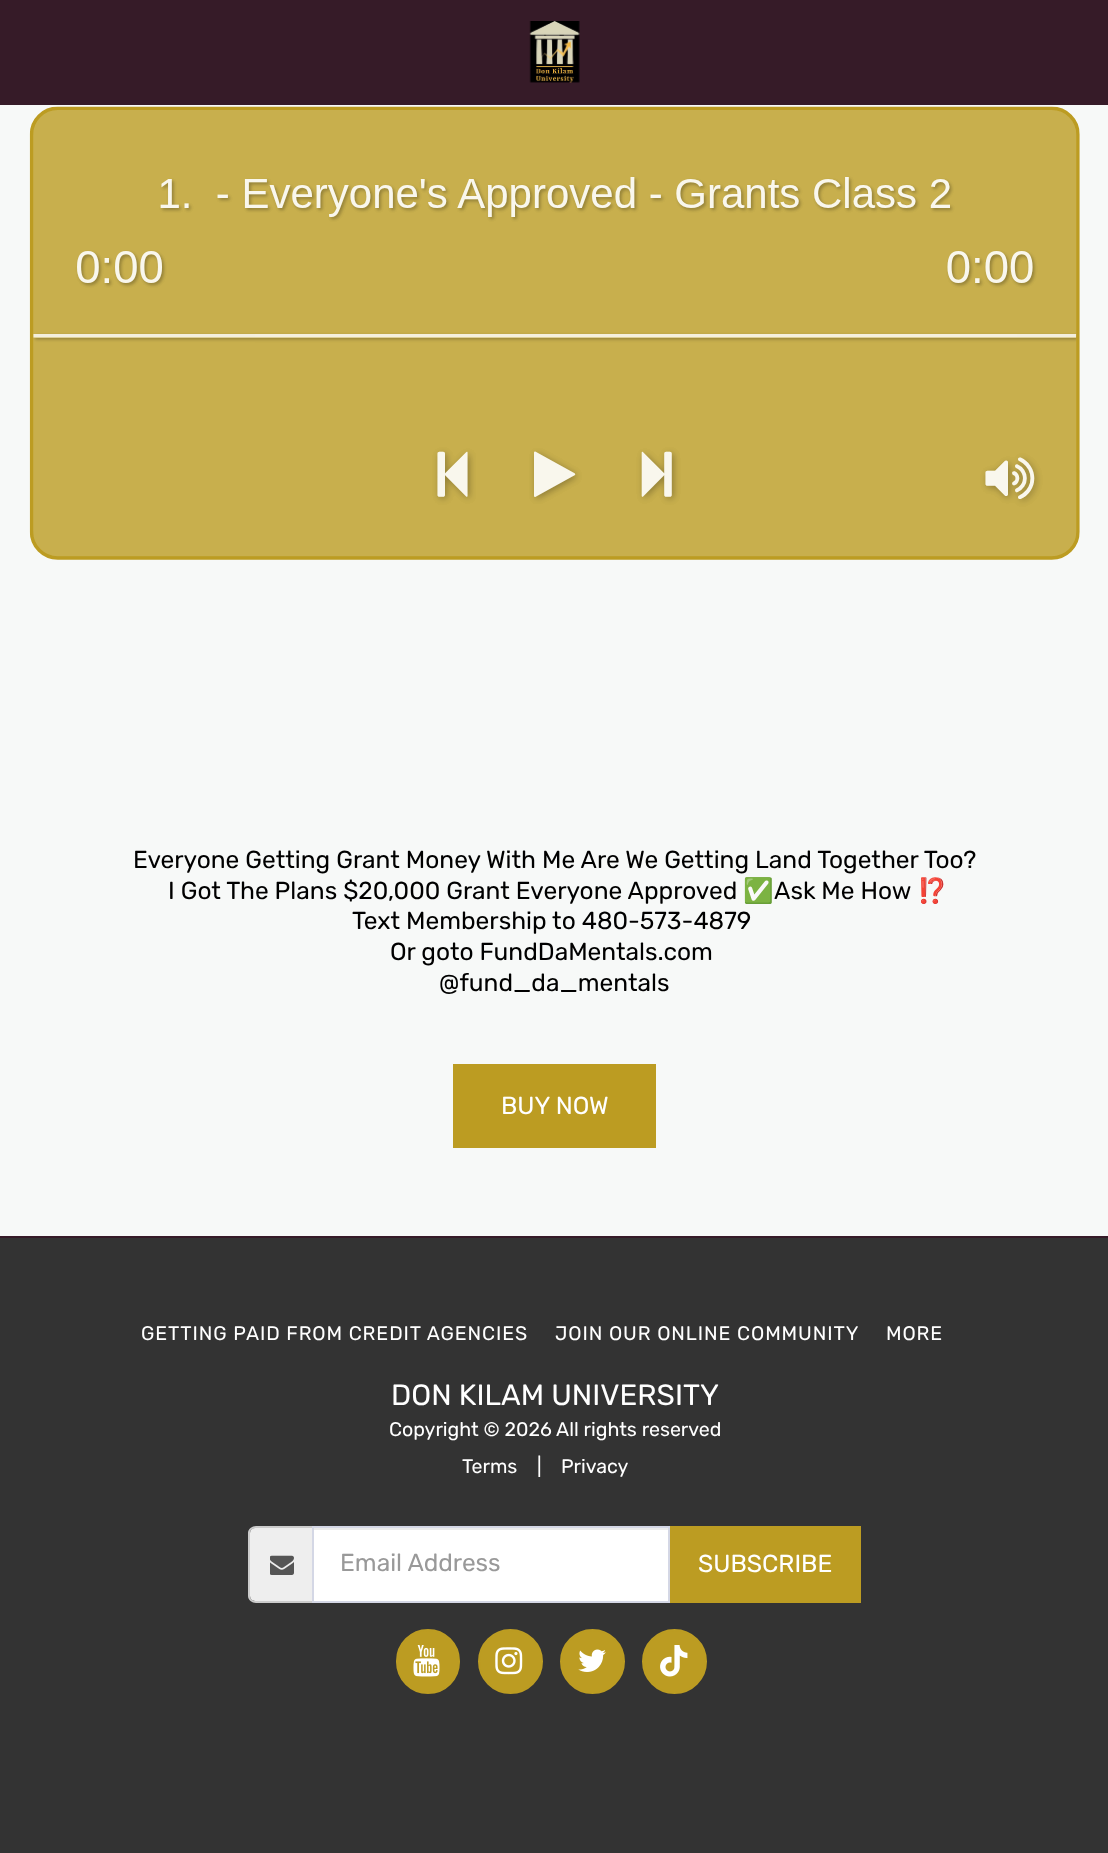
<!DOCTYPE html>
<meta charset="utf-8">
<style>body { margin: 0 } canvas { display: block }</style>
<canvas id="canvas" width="1108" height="1853"></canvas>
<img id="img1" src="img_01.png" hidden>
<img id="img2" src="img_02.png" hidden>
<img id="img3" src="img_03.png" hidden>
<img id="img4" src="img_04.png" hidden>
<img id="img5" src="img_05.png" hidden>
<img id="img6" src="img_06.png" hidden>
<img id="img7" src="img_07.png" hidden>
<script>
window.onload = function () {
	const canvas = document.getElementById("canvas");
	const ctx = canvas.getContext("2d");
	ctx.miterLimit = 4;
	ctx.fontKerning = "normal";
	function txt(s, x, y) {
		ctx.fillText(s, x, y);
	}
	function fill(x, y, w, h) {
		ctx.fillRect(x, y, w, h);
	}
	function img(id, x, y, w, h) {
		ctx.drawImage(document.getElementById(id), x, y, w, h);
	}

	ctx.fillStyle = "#F7F9F8";
	fill(0, 0, 1108, 1853);
	ctx.fillStyle = "#361B28";
	fill(0, 0, 1108, 105);
	img("img1", 529, 21, 51, 62);
	img("img2", 29, 106, 1051, 454);
	ctx.fillStyle = "#BC9C22";
	fill(453, 1064, 203, 84);
	ctx.fillStyle = "#333333";
	fill(0, 1238, 1108, 615);
	ctx.fillStyle = "#361B28";
	fill(0, 1236, 1108, 2);
	ctx.fillStyle = "#EEEEEE";
	ctx.beginPath();
	ctx.roundRect(250, 1528, 62, 73, [5, 0, 0, 5]);
	ctx.fill();
	ctx.fillStyle = "#CCCCCC";
	ctx.beginPath();
	ctx.moveTo(256, 1526);
	ctx.lineTo(312, 1526);
	ctx.lineTo(312, 1603);
	ctx.lineTo(256, 1603);
	ctx.bezierCurveTo(252, 1603, 248, 1600, 248, 1596);
	ctx.lineTo(248, 1533);
	ctx.bezierCurveTo(248, 1529, 252, 1526, 256, 1526);
	ctx.closePath();
	ctx.moveTo(256, 1528);
	ctx.lineTo(312, 1528);
	ctx.lineTo(312, 1601);
	ctx.lineTo(256, 1601);
	ctx.bezierCurveTo(253, 1601, 250, 1599, 250, 1596);
	ctx.lineTo(250, 1533);
	ctx.bezierCurveTo(250, 1530, 253, 1528, 256, 1528);
	ctx.closePath();
	ctx.fill("evenodd");
	img("img3", 270, 1555, 24, 20);
	ctx.fillStyle = "#FFFFFF";
	fill(314, 1530, 354, 71);
	ctx.fillStyle = "#ECECEC";
	fill(313, 1528, 356, 2);
	ctx.strokeStyle = "#D4D7E5";
	ctx.lineWidth = 2;
	ctx.strokeRect(313, 1527, 356, 75);
	ctx.fillStyle = "#BC9C22";
	fill(670, 1526, 191, 77);
	ctx.beginPath();
	ctx.roundRect(397, 1630, 62, 63, 31);
	ctx.fill();
	ctx.strokeStyle = "#BC9C22";
	ctx.stroke();
	img("img4", 413, 1645, 27, 32);
	ctx.beginPath();
	ctx.arc(510.5, 1661.5, 31.5, 0, Math.PI * 2);
	ctx.fill();
	ctx.stroke();
	img("img5", 495, 1647, 28, 28);
	ctx.beginPath();
	ctx.arc(592.5, 1661.5, 31.5, 0, Math.PI * 2);
	ctx.fill();
	ctx.stroke();
	img("img6", 578, 1649, 28, 23);
	ctx.beginPath();
	ctx.arc(674.5, 1661.5, 31.5, 0, Math.PI * 2);
	ctx.fill();
	ctx.stroke();
	img("img7", 660, 1645, 28, 32);
	ctx.font = "24.5px Rubik";
	ctx.fillStyle = "#000000";
	txt("Everyone Getting Grant Money With Me Are We Getting Land Together Too?", 133, 868);
	txt("I Got The Plans $20,000 Grant Everyone Approved", 168, 899);
	ctx.font = "24.5px Noto Color Emoji";
	txt("✅", 743, 899);
	ctx.font = "24.5px Rubik";
	txt("Ask Me How", 774, 899);
	ctx.font = "24.5px Noto Color Emoji";
	txt("⁉️", 917, 899);
	ctx.font = "24.5px Rubik";
	txt("Text Membership to 480-573-4879", 352, 929);
	txt("Or goto FundDaMentals.com", 390, 960);
	txt("@fund_da_mentals", 439, 991);
	ctx.fillStyle = "#FFFFFF";
	txt("BUY NOW", 501, 1114);
	ctx.letterSpacing = "0.9px";
	ctx.font = "19.6px Rubik";
	txt("GETTING PAID FROM CREDIT AGENCIES", 141, 1340);
	txt("JOIN OUR ONLINE COMMUNITY", 555, 1340);
	txt("MORE", 886, 1340);
	ctx.letterSpacing = "0px";
	ctx.font = "29.4px Rubik";
	txt("DON KILAM UNIVERSITY", 391, 1405);
	ctx.font = "19.6px Rubik";
	txt("Copyright © 2026 All rights reserved", 389, 1436);
	txt("Terms", 462, 1473);
	txt("|", 537, 1473);
	txt("Privacy", 561, 1473);
	ctx.font = "24.5px Rubik";
	ctx.fillStyle = "#999999";
	txt("Email Address", 340, 1571);
	ctx.fillStyle = "#FFFFFF";
	txt("SUBSCRIBE", 698, 1572);
};
</script>
